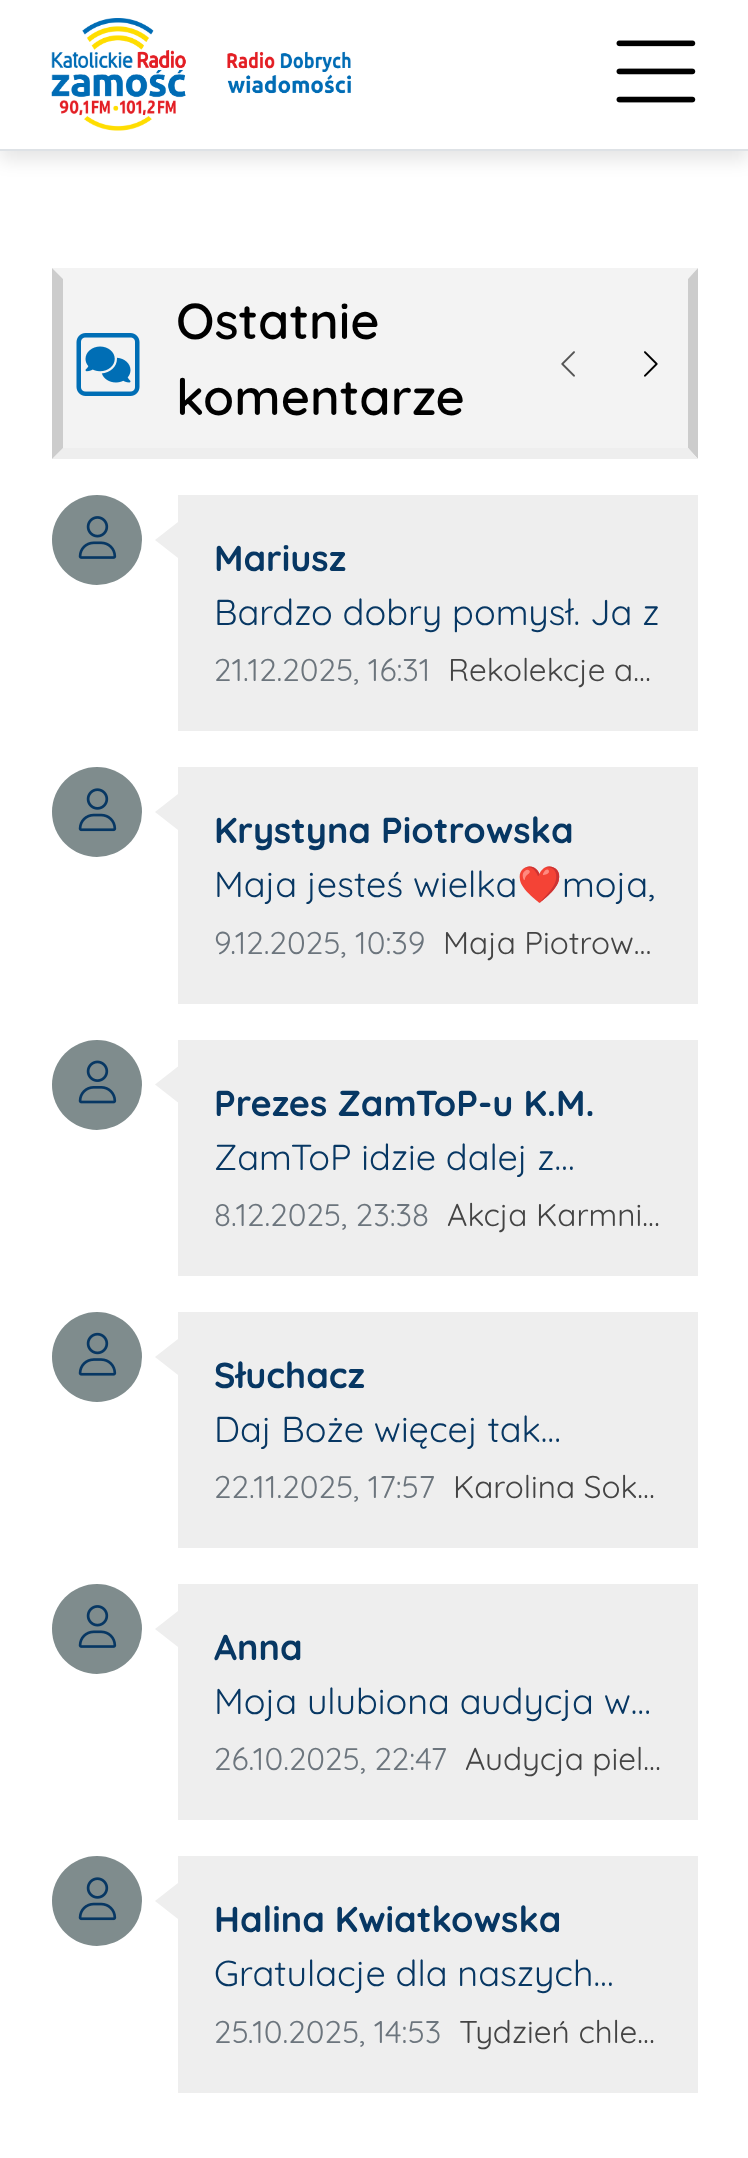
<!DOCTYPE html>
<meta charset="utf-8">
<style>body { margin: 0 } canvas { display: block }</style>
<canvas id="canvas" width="748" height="2158"></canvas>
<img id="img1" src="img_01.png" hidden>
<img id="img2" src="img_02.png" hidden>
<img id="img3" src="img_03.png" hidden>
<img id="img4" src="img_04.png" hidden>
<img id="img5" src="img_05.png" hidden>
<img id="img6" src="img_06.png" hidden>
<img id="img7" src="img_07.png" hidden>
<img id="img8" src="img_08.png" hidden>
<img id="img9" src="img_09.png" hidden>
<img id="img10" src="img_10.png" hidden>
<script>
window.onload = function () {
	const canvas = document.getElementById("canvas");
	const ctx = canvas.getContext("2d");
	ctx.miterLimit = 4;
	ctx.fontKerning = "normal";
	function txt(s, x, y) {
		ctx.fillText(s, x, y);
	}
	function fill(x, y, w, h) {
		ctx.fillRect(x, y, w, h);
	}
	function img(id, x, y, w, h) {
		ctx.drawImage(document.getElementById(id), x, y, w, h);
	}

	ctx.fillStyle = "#FFFFFF";
	fill(0, 0, 748, 2158);
	ctx.fillStyle = "rgba(0, 0, 0, 0.1)";
	ctx.filter = "blur(9px)";
	ctx.beginPath();
	ctx.rect(0, 9, 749, 151);
	ctx.fill();
	ctx.filter = "none";
	ctx.fillStyle = "#FFFFFF";
	fill(0, 0, 748, 149);
	ctx.fillStyle = "#DEE2E6";
	fill(0, 149, 748, 2);
	img("img1", 51, 18, 300, 113);
	img("img2", 616, 40, 80, 63);
	ctx.fillStyle = "#F3F3F3";
	fill(63, 279, 625, 169);
	ctx.beginPath();
	ctx.moveTo(52, 268);
	ctx.lineTo(698, 268);
	ctx.lineTo(688, 279);
	ctx.lineTo(63, 279);
	ctx.closePath();
	ctx.fill();
	ctx.fillStyle = "#CCCCCC";
	ctx.beginPath();
	ctx.moveTo(698, 268);
	ctx.lineTo(698, 459);
	ctx.lineTo(688, 448);
	ctx.lineTo(688, 279);
	ctx.closePath();
	ctx.fill();
	ctx.fillStyle = "#EEEEEE";
	ctx.beginPath();
	ctx.moveTo(698, 459);
	ctx.lineTo(52, 459);
	ctx.lineTo(63, 448);
	ctx.lineTo(688, 448);
	ctx.closePath();
	ctx.fill();
	ctx.fillStyle = "#CCCCCC";
	ctx.beginPath();
	ctx.moveTo(52, 459);
	ctx.lineTo(52, 268);
	ctx.lineTo(63, 279);
	ctx.lineTo(63, 448);
	ctx.closePath();
	ctx.fill();
	img("img3", 76, 333, 64, 63);
	img("img4", 85, 346, 46, 37);
	img("img5", 561, 351, 14, 26);
	img("img6", 644, 351, 14, 26);
	ctx.fillStyle = "#7F8C8D";
	ctx.beginPath();
	ctx.arc(97, 540, 45, 0, Math.PI * 2);
	ctx.fill();
	img("img7", 78, 516, 39, 43);
	ctx.fillStyle = "#EEEEEE";
	fill(178, 495, 520, 236);
	ctx.beginPath();
	ctx.moveTo(178, 522);
	ctx.lineTo(178, 558);
	ctx.lineTo(155, 540);
	ctx.closePath();
	ctx.fill();
	ctx.fillStyle = "#7F8C8D";
	ctx.beginPath();
	ctx.arc(97, 812, 45, 0, Math.PI * 2);
	ctx.fill();
	img("img8", 78, 788, 39, 44);
	ctx.fillStyle = "#EEEEEE";
	fill(178, 767, 520, 237);
	ctx.beginPath();
	ctx.moveTo(178, 794);
	ctx.lineTo(178, 830);
	ctx.lineTo(155, 812);
	ctx.closePath();
	ctx.fill();
	ctx.fillStyle = "#7F8C8D";
	ctx.beginPath();
	ctx.arc(97, 1085, 45, 0, Math.PI * 2);
	ctx.fill();
	img("img9", 78, 1060, 39, 44);
	ctx.fillStyle = "#EEEEEE";
	fill(178, 1040, 520, 236);
	ctx.beginPath();
	ctx.moveTo(178, 1066.5);
	ctx.lineTo(178, 1102.5);
	ctx.lineTo(155, 1084.5);
	ctx.closePath();
	ctx.fill();
	ctx.fillStyle = "#7F8C8D";
	ctx.beginPath();
	ctx.arc(97, 1357, 45, 0, Math.PI * 2);
	ctx.fill();
	img("img10", 78, 1332, 39, 44);
	ctx.fillStyle = "#EEEEEE";
	fill(178, 1312, 520, 236);
	ctx.beginPath();
	ctx.moveTo(178, 1339);
	ctx.lineTo(178, 1375);
	ctx.lineTo(155, 1357);
	ctx.closePath();
	ctx.fill();
	ctx.fillStyle = "#7F8C8D";
	ctx.beginPath();
	ctx.arc(97, 1629, 45, 0, Math.PI * 2);
	ctx.fill();
	img("img7", 78, 1605, 39, 43);
	ctx.fillStyle = "#EEEEEE";
	fill(178, 1584, 520, 236);
	ctx.beginPath();
	ctx.moveTo(178, 1611);
	ctx.lineTo(178, 1647);
	ctx.lineTo(155, 1629);
	ctx.closePath();
	ctx.fill();
	ctx.fillStyle = "#7F8C8D";
	ctx.beginPath();
	ctx.arc(97, 1901, 45, 0, Math.PI * 2);
	ctx.fill();
	img("img8", 78, 1877, 39, 44);
	ctx.fillStyle = "#EEEEEE";
	fill(178, 1856, 520, 237);
	ctx.beginPath();
	ctx.moveTo(178, 1883);
	ctx.lineTo(178, 1919);
	ctx.lineTo(155, 1901);
	ctx.closePath();
	ctx.fill();
	ctx.font = "600 50.5px Quicksand";
	ctx.fillStyle = "#000000";
	txt("Ostatnie", 176, 339);
	txt("komentarze", 176, 415);
	ctx.font = "bold 36px Quicksand";
	ctx.fillStyle = "#073763";
	txt("Mariusz", 214, 571);
	ctx.font = "36px Quicksand";
	txt("Bardzo dobry pomysł. Ja z", 214, 625);
	ctx.font = "31.5px Quicksand";
	ctx.fillStyle = "#6C757D";
	txt("21.12.2025, 16:31", 214, 681);
	ctx.fillStyle = "#444444";
	txt("Rekolekcje a…", 448, 681);
	ctx.font = "bold 36px Quicksand";
	ctx.fillStyle = "#073763";
	txt("Krystyna Piotrowska", 214, 843);
	ctx.font = "36px Quicksand";
	txt("Maja jesteś wielka", 214, 897);
	ctx.font = "36px Noto Color Emoji";
	txt("❤️", 517, 897);
	ctx.font = "36px Quicksand";
	txt("moja,", 562, 897);
	ctx.font = "31.5px Quicksand";
	ctx.fillStyle = "#6C757D";
	txt("9.12.2025, 10:39", 214, 954);
	ctx.fillStyle = "#444444";
	txt("Maja Piotrow…", 443, 954);
	ctx.font = "bold 36px Quicksand";
	ctx.fillStyle = "#073763";
	txt("Prezes ZamToP-u K.M.", 214, 1116);
	ctx.font = "36px Quicksand";
	txt("ZamToP idzie dalej z…", 214, 1170);
	ctx.font = "31.5px Quicksand";
	ctx.fillStyle = "#6C757D";
	txt("8.12.2025, 23:38", 214, 1226);
	ctx.fillStyle = "#444444";
	txt("Akcja Karmni…", 447, 1226);
	ctx.font = "bold 36px Quicksand";
	ctx.fillStyle = "#073763";
	txt("Słuchacz", 214, 1388);
	ctx.font = "36px Quicksand";
	txt("Daj Boże więcej tak…", 214, 1442);
	ctx.font = "31.5px Quicksand";
	ctx.fillStyle = "#6C757D";
	txt("22.11.2025, 17:57", 214, 1498);
	ctx.fillStyle = "#444444";
	txt("Karolina Sok…", 453, 1498);
	ctx.font = "bold 36px Quicksand";
	ctx.fillStyle = "#073763";
	txt("Anna", 214, 1660);
	ctx.font = "36px Quicksand";
	txt("Moja ulubiona audycja w…", 214, 1714);
	ctx.font = "31.5px Quicksand";
	ctx.fillStyle = "#6C757D";
	txt("26.10.2025, 22:47", 214, 1770);
	ctx.fillStyle = "#444444";
	txt("Audycja piel…", 465, 1770);
	ctx.font = "bold 36px Quicksand";
	ctx.fillStyle = "#073763";
	txt("Halina Kwiatkowska", 214, 1932);
	ctx.font = "36px Quicksand";
	txt("Gratulacje dla naszych…", 214, 1986);
	ctx.font = "31.5px Quicksand";
	ctx.fillStyle = "#6C757D";
	txt("25.10.2025, 14:53", 214, 2043);
	ctx.fillStyle = "#444444";
	txt("Tydzień chle…", 459, 2043);
};
</script>
